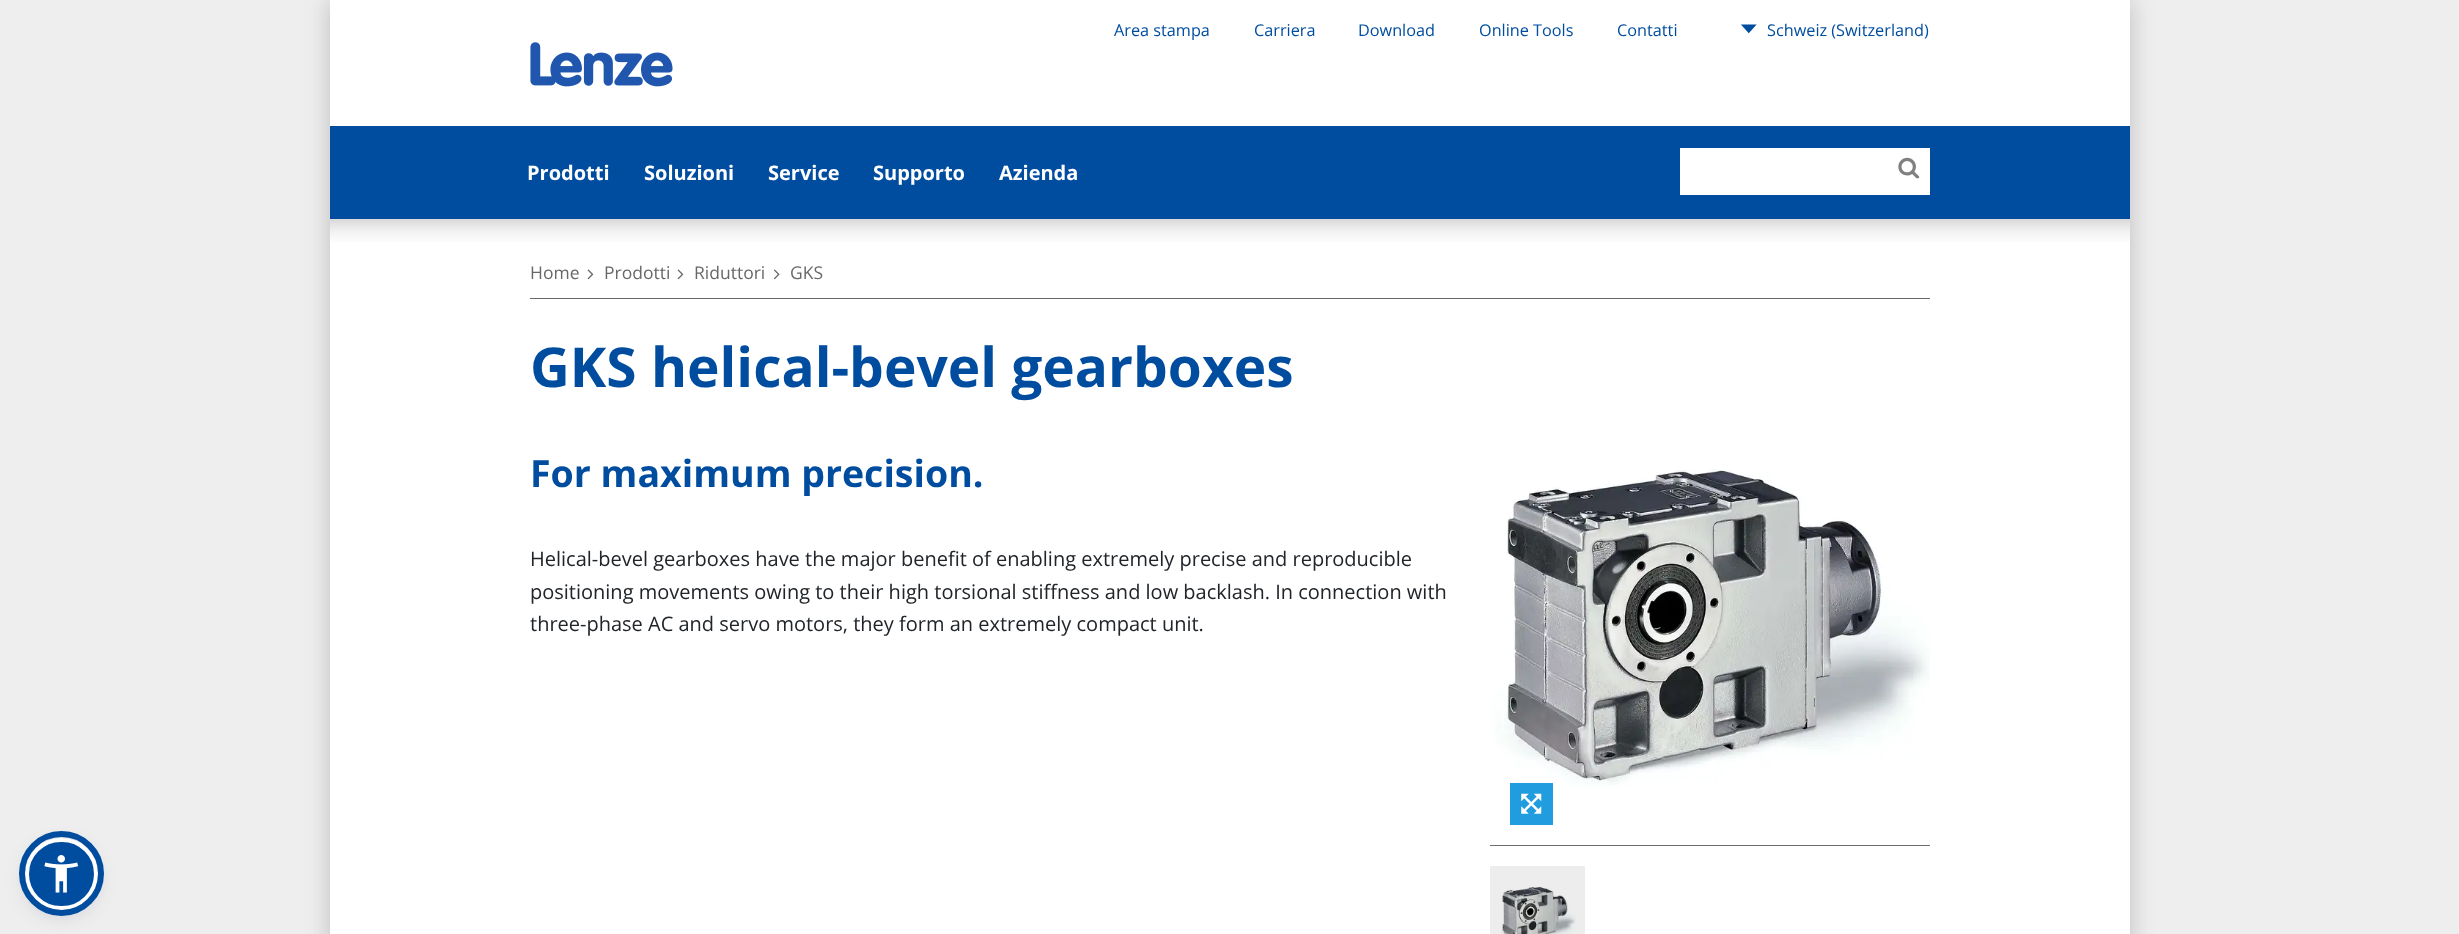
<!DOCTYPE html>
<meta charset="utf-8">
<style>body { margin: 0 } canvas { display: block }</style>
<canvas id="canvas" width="2459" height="934"></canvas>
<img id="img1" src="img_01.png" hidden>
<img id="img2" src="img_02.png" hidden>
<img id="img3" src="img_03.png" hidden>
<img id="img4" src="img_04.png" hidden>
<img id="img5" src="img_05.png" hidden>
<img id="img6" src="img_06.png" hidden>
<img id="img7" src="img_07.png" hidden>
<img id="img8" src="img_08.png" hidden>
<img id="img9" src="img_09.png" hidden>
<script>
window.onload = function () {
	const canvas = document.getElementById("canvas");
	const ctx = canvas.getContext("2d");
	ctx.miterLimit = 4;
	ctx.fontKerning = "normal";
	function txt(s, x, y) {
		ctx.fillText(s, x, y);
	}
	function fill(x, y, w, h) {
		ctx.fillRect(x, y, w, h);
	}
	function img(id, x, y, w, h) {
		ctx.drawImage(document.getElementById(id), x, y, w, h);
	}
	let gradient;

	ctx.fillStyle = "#EEEEEE";
	fill(0, 0, 2459, 934);
	ctx.fillStyle = "rgba(0, 0, 0, 0.2)";
	ctx.filter = "blur(12.5px)";
	ctx.beginPath();
	ctx.rect(330, 0, 1800, 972);
	ctx.fill();
	ctx.filter = "none";
	ctx.fillStyle = "#FFFFFF";
	fill(330, 0, 1800, 934);
	ctx.fillStyle = "#EDEDED";
	fill(1490, 866, 95, 68);
	img("img1", 1741, 24, 16, 10);
	img("img2", 530, 42, 143, 45);
	ctx.fillStyle = "#004DA0";
	fill(330, 126, 1800, 93);
	ctx.fillStyle = "#FFFFFF";
	fill(1680, 148, 250, 47);
	img("img3", 1898, 157, 22, 22);
	gradient = ctx.createLinearGradient(1230, 219, 1230, 244);
	gradient.addColorStop(0, "#D9D9D9");
	gradient.addColorStop(0.5, "#F2F2F2");
	gradient.addColorStop(1, "#FFFFFF");
	ctx.fillStyle = gradient;
	fill(330, 219, 1800, 23);
	ctx.fillStyle = "#686868";
	fill(530, 298, 1400, 1);
	img("img4", 587, 269, 7, 11);
	img("img4", 677, 269, 7, 11);
	img("img5", 773, 269, 7, 11);
	fill(1490, 845, 440, 1);
	img("img6", 1490, 469, 440, 377);
	ctx.fillStyle = "#209CDF";
	fill(1510, 783, 43, 42);
	img("img7", 1521, 793, 21, 21);
	img("img8", 1501, 886, 75, 48);
	ctx.fillStyle = "rgba(93, 100, 148, 0.2)";
	ctx.filter = "blur(2.5px)";
	ctx.beginPath();
	ctx.roundRect(25, 840, 73, 73, 36.5);
	ctx.fill();
	ctx.filter = "none";
	ctx.fillStyle = "rgba(37, 44, 97, 0.15)";
	ctx.filter = "blur(9.5px)";
	ctx.beginPath();
	ctx.roundRect(25, 844, 73, 72, 36);
	ctx.fill();
	ctx.filter = "none";
	ctx.fillStyle = "#004DA0";
	ctx.beginPath();
	ctx.roundRect(27, 840, 69, 68, 34);
	ctx.fill();
	ctx.strokeStyle = "#FFFFFF";
	ctx.lineWidth = 4;
	ctx.stroke();
	ctx.beginPath();
	ctx.arc(61.5, 873.5, 39.5, 0, Math.PI * 2);
	ctx.strokeStyle = "#004DA0";
	ctx.lineWidth = 6;
	ctx.stroke();
	img("img9", 44, 855, 35, 38);
	ctx.font = "16.25px Open Sans";
	txt("Area stampa", 1114, 36);
	txt("Carriera", 1254, 36);
	txt("Download", 1358, 36);
	txt("Online Tools", 1479, 36);
	txt("Contatti", 1617, 36);
	txt("Schweiz (Switzerland)", 1767, 36);
	ctx.font = "bold 20px Open Sans";
	ctx.fillStyle = "#FFFFFF";
	txt("Prodotti", 527, 180);
	txt("Soluzioni", 644, 180);
	txt("Service", 768, 180);
	txt("Supporto", 873, 180);
	txt("Azienda", 999, 180);
	ctx.font = "17.5px Open Sans";
	ctx.fillStyle = "#686868";
	txt("Home", 530, 279);
	txt("Prodotti", 604, 279);
	txt("Riduttori", 694, 279);
	txt("GKS", 790, 279);
	ctx.font = "bold 55px Open Sans";
	ctx.fillStyle = "#004DA0";
	txt("GKS helical-bevel gearboxes", 530, 387);
	ctx.font = "bold 37.5px Open Sans";
	txt("For maximum precision.", 530, 487);
	ctx.font = "20px Open Sans";
	ctx.fillStyle = "#212529";
	txt("Helical-bevel gearboxes have the major benefit of enabling extremely precise and reproducible", 530, 566);
	txt("positioning movements owing to their high torsional stiffness and low backlash. In connection with", 530, 599);
	txt("three-phase AC and servo motors, they form an extremely compact unit.", 530, 631);
};
</script>
